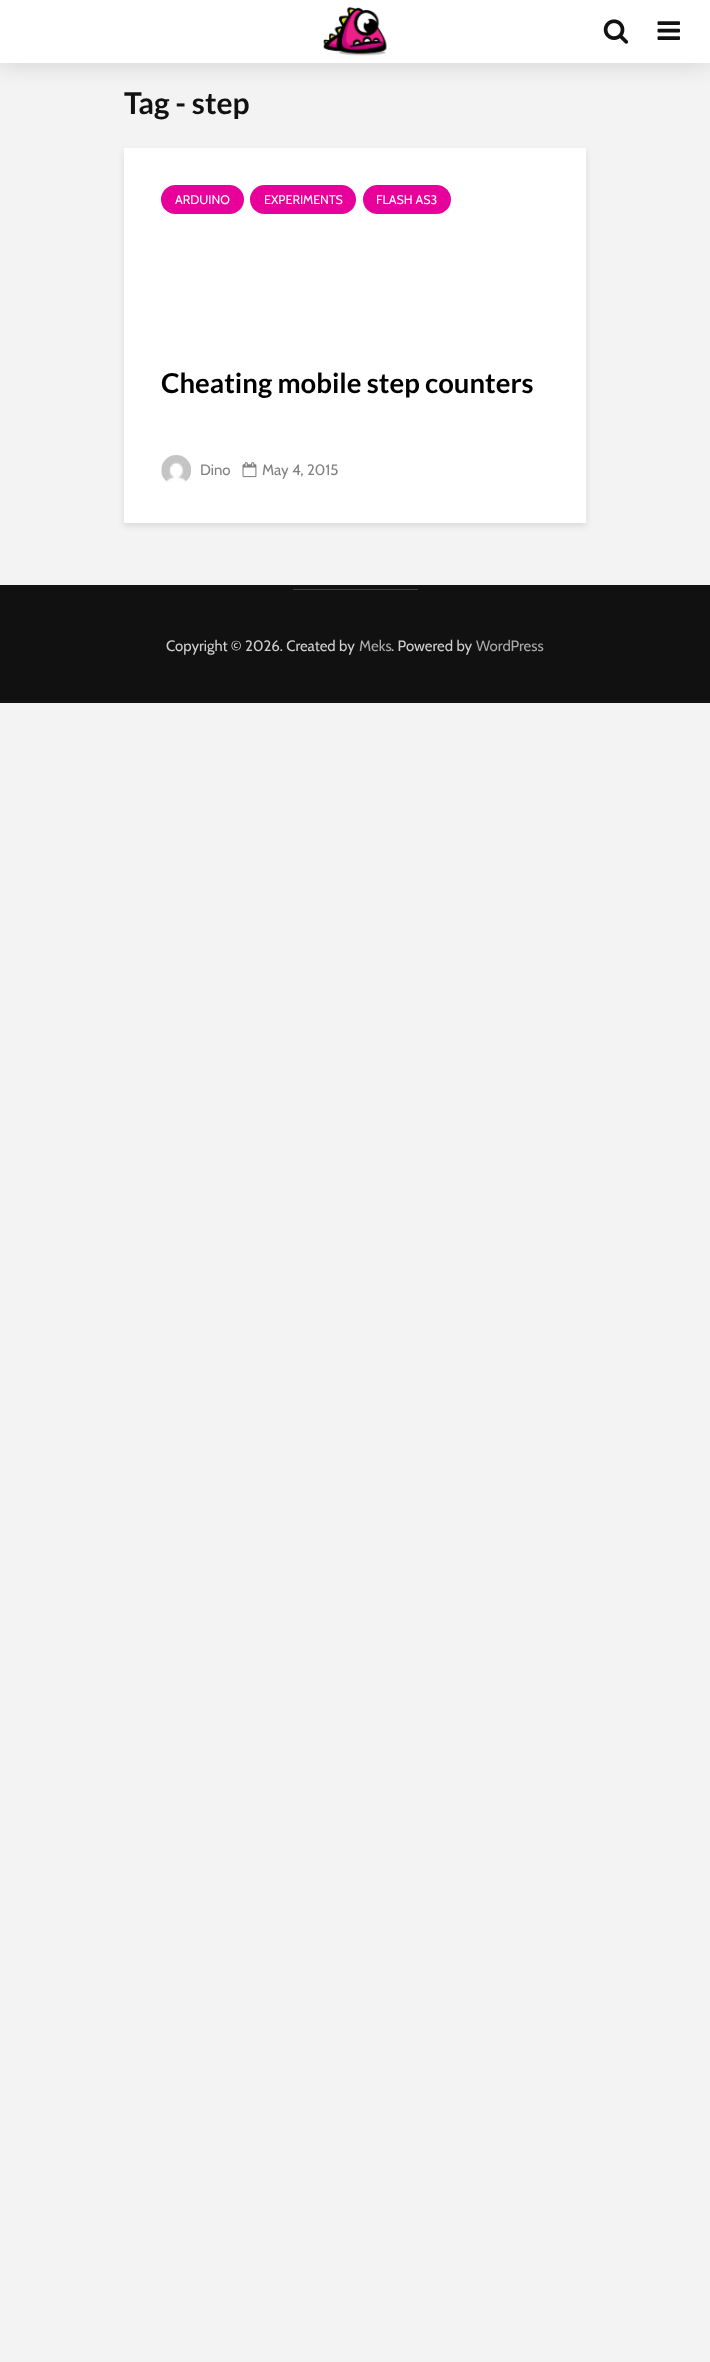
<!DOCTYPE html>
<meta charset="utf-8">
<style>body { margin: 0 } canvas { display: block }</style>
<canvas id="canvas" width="710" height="2362"></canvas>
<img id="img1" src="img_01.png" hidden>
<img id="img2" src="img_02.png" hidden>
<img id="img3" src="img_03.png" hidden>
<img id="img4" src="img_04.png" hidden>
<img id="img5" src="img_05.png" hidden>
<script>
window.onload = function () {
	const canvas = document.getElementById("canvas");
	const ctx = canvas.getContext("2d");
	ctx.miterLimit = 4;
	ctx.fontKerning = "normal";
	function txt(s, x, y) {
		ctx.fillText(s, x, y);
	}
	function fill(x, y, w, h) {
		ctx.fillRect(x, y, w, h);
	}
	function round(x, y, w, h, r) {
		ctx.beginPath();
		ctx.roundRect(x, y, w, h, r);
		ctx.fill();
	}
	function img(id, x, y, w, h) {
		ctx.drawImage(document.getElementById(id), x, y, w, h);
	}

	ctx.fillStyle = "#F3F3F3";
	fill(0, 0, 710, 2362);
	ctx.fillStyle = "rgba(0, 0, 0, 0.15)";
	ctx.filter = "blur(12.5px)";
	ctx.beginPath();
	ctx.rect(0, 0, 710, 63);
	ctx.fill();
	ctx.filter = "none";
	ctx.fillStyle = "#FFFFFF";
	fill(0, 0, 710, 63);
	img("img1", 323, 7, 64, 49);
	img("img2", 603, 19, 26, 25);
	img("img3", 657, 21, 23, 19);
	ctx.fillStyle = "rgba(0, 1, 1, 0.1)";
	ctx.filter = "blur(3px)";
	ctx.beginPath();
	ctx.rect(124, 151, 462, 375);
	ctx.fill();
	ctx.filter = "none";
	ctx.fillStyle = "#FFFFFF";
	fill(124, 148, 462, 375);
	ctx.fillStyle = "#E8009A";
	round(161, 185, 83, 29, 14.5);
	round(250, 185, 106, 29, 14.5);
	round(363, 185, 88, 29, 14.5);
	img("img4", 161, 455, 30, 27);
	img("img5", 242, 462, 15, 16);
	ctx.fillStyle = "#111111";
	fill(0, 585, 710, 118);
	ctx.fillStyle = "#414141";
	fill(293, 589, 125, 1);
	ctx.font = "bold 30px Lato";
	ctx.fillStyle = "#111111";
	txt("Tag - step", 124, 114);
	ctx.font = "12.5px Cabin";
	ctx.fillStyle = "#FFFFFF";
	txt("ARDUINO", 175, 204);
	txt("EXPERIMENTS", 264, 204);
	txt("FLASH AS3", 376, 204);
	ctx.font = "bold 27.5px Lato";
	ctx.fillStyle = "#000000";
	txt("Cheating mobile step counters", 161, 393);
	ctx.font = "15px Cabin";
	ctx.fillStyle = "#818181";
	txt("Dino", 200, 475);
	txt("May 4, 2015", 262, 475);
	ctx.fillStyle = "#CFCFCF";
	txt("Copyright © 2026. Created by", 166, 651);
	ctx.fillStyle = "#A9A9A9";
	txt("Meks", 359, 651);
	ctx.fillStyle = "#CFCFCF";
	txt(". Powered by", 391, 651);
	ctx.fillStyle = "#A9A9A9";
	txt("WordPress", 476, 651);
};
</script>
